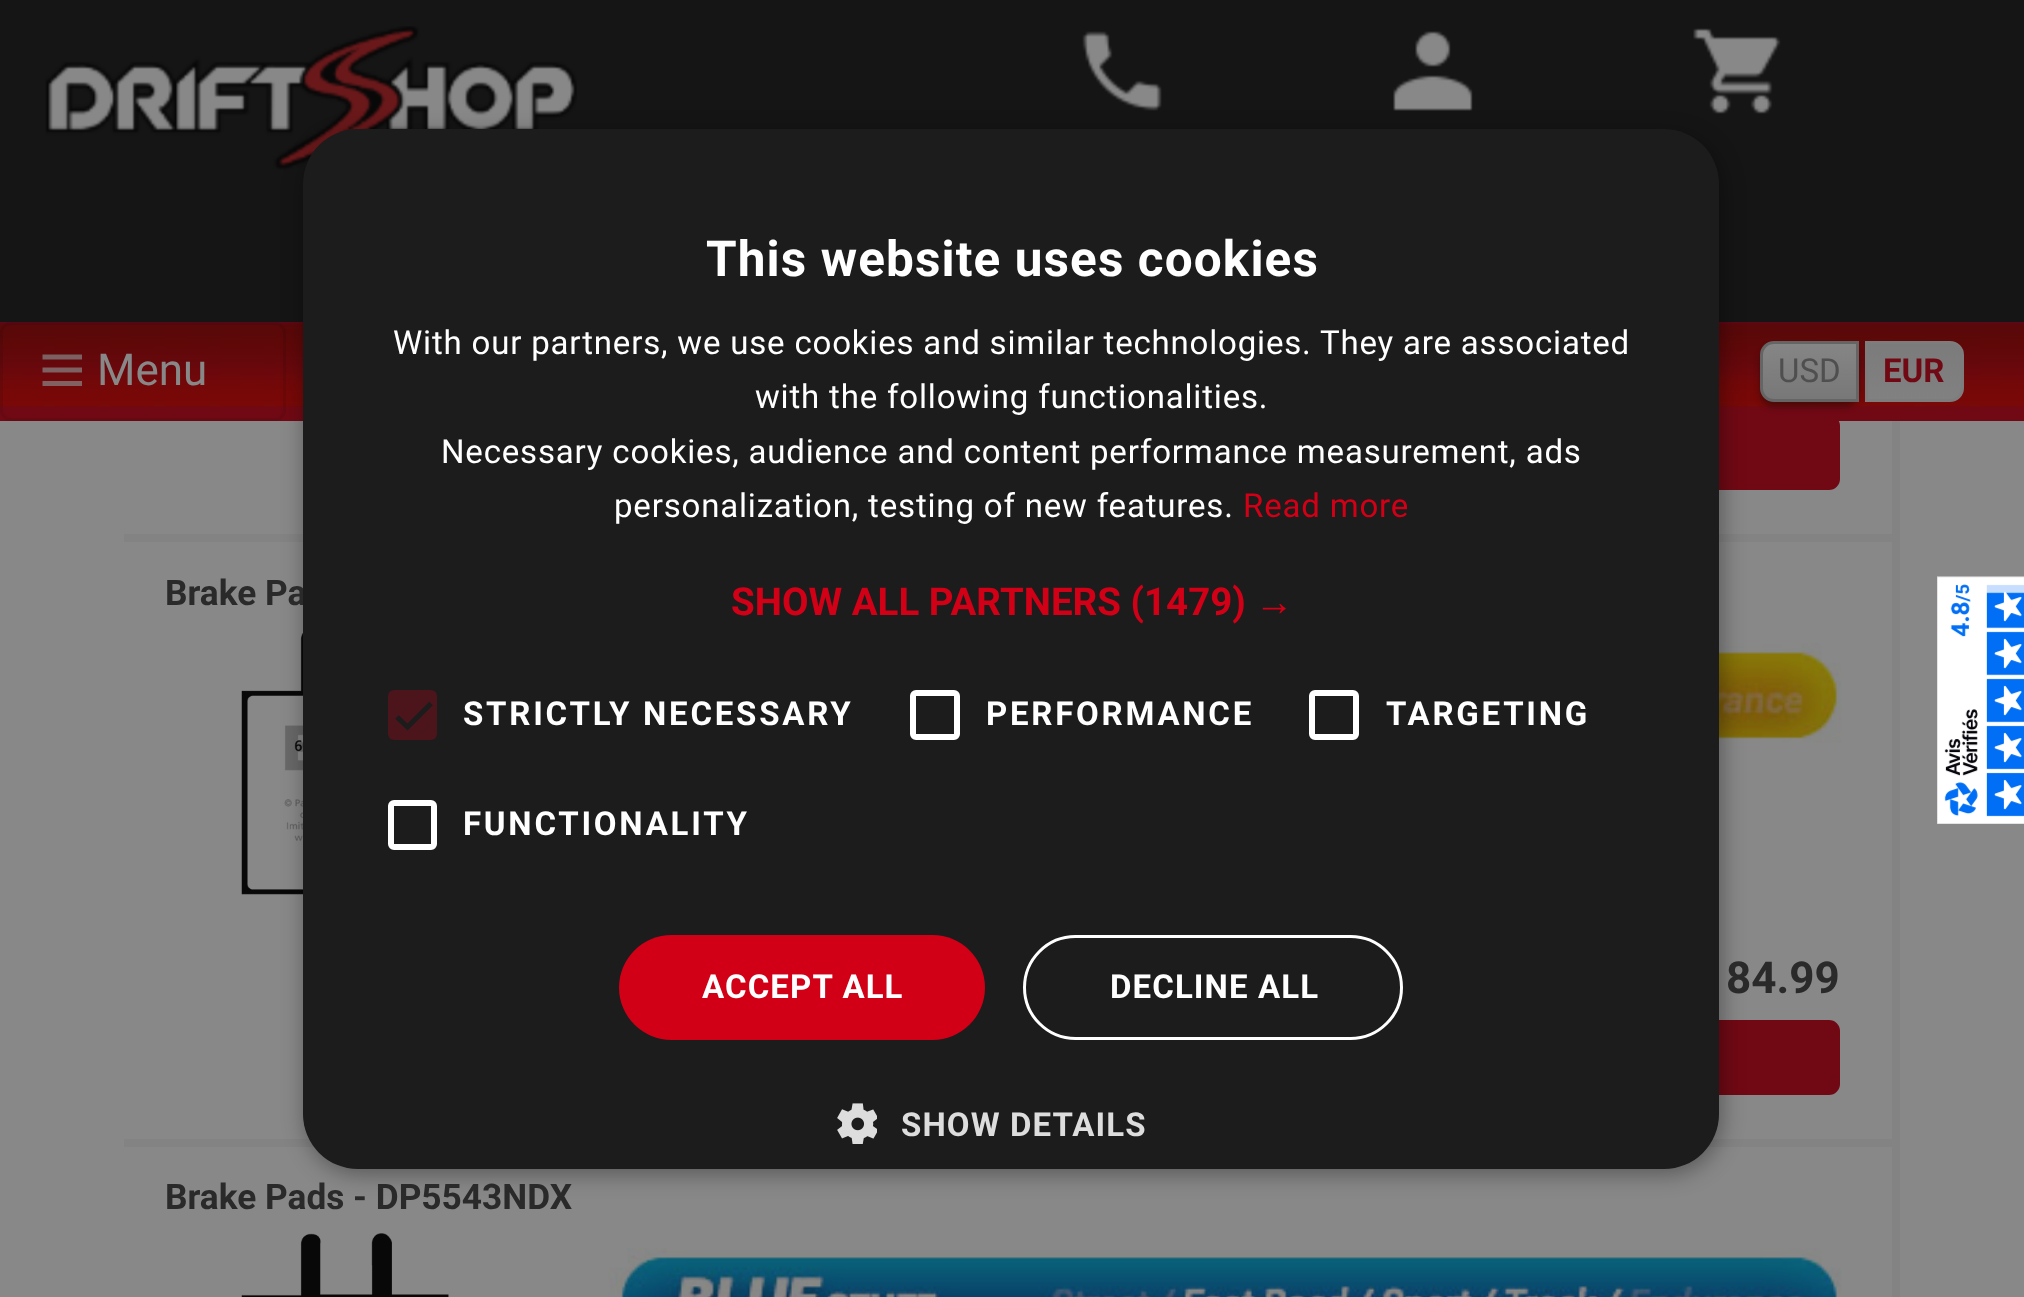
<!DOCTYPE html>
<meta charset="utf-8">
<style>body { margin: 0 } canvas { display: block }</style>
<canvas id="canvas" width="2024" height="1297"></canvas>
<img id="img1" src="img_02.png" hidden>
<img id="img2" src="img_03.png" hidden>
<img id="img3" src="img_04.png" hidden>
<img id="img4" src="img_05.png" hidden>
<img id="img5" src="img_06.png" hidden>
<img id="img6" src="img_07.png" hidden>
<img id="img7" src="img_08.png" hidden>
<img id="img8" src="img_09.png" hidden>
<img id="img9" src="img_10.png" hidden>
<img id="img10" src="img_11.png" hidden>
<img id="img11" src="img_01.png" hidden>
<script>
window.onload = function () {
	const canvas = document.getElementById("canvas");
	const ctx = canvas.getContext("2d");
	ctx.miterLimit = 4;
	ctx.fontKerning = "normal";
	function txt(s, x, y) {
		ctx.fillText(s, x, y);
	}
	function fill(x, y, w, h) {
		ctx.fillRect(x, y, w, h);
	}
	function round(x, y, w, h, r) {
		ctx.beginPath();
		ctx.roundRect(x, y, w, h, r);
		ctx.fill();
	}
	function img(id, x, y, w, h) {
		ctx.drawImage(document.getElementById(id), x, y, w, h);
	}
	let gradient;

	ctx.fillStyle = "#888888";
	fill(0, 0, 2024, 1297);
	ctx.fillStyle = "#151515";
	fill(0, 0, 2024, 322);
	img("img1", 45, 26, 532, 144);
	img("img2", 1082, 31, 80, 80);
	img("img3", 1393, 31, 80, 80);
	img("img4", 1693, 28, 88, 86);
	ctx.fillStyle = "#710914";
	ctx.beginPath();
	ctx.roundRect(620.5, 416.5, 1218, 72, 9.5);
	ctx.fill();
	ctx.strokeStyle = "#710914";
	ctx.lineWidth = 3;
	ctx.stroke();
	fill(0, 406, 2024, 15);
	img("img5", 0, 322, 2024, 85);
	ctx.beginPath();
	ctx.roundRect(1.5, 323.5, 283, 96, 9.5);
	ctx.strokeStyle = "rgba(9, 9, 9, 0.1)";
	ctx.stroke();
	ctx.fillStyle = "#838383";
	fill(124, 534, 1768, 8);
	fill(124, 1139, 1768, 8);
	img("img6", 241, 628, 62, 267);
	img("img7", 1719, 643, 123, 100);
	ctx.fillStyle = "#710914";
	ctx.beginPath();
	ctx.roundRect(620.5, 1021.5, 1218, 72, 9.5);
	ctx.fill();
	ctx.strokeStyle = "#710914";
	ctx.stroke();
	ctx.fillStyle = "rgba(0, 0, 0, 0.35)";
	ctx.filter = "blur(11px)";
	ctx.beginPath();
	ctx.roundRect(305, 135, 1417, 1039, 55);
	ctx.fill();
	ctx.filter = "none";
	ctx.beginPath();
	ctx.moveTo(42.5, 357);
	ctx.lineTo(82, 357);
	ctx.moveTo(42.5, 370);
	ctx.lineTo(82, 370);
	ctx.moveTo(42.5, 383.5);
	ctx.lineTo(82, 383.5);
	ctx.strokeStyle = "rgba(136, 136, 136, 0.7)";
	ctx.lineWidth = 4.9;
	ctx.stroke();
	gradient = ctx.createLinearGradient(1914, 341, 1914, 402);
	gradient.addColorStop(0.01, "#7B7B7B");
	gradient.addColorStop(1, "#818181");
	ctx.fillStyle = gradient;
	ctx.beginPath();
	ctx.roundRect(1866.5, 342.5, 96, 58, [0, 12.5, 12.5, 0]);
	ctx.fill();
	ctx.strokeStyle = "#7D7D7D";
	ctx.lineWidth = 3;
	ctx.stroke();
	ctx.fillStyle = "rgba(9, 9, 9, 0.4)";
	ctx.filter = "blur(3px)";
	ctx.beginPath();
	ctx.roundRect(1760, 347, 99, 60, 14);
	ctx.fill();
	ctx.filter = "none";
	gradient = ctx.createLinearGradient(1810, 341, 1810, 402);
	gradient.addColorStop(0, "#868686");
	gradient.addColorStop(1, "#777777");
	ctx.fillStyle = gradient;
	ctx.beginPath();
	ctx.roundRect(1761.5, 342.5, 96, 58, [12.5, 0, 0, 12.5]);
	ctx.fill();
	ctx.strokeStyle = "#656565";
	ctx.stroke();
	ctx.fillStyle = "#838383";
	fill(1892, 421, 8, 876);
	img("img8", 241, 1233, 208, 64);
	img("img9", 608, 1248, 1234, 49);
	img("img10", 1937, 576, 87, 248);
	ctx.font = "44px Roboto";
	ctx.fillStyle = "#888888";
	txt("Menu", 97, 385);
	ctx.font = "33px Roboto";
	ctx.fillStyle = "#4F4F4F";
	txt("USD", 1778, 382);
	ctx.font = "bold 33px Roboto";
	ctx.fillStyle = "#710914";
	txt("EUR", 1883, 382);
	ctx.font = "bold 35.25px Roboto";
	ctx.fillStyle = "#2A2A2A";
	txt("Brake Pa", 165, 605);
	ctx.fillStyle = "#1C1C1C";
	round(303, 129, 1416, 1040, 55);
	ctx.letterSpacing = "1.1px";
	ctx.font = "bold 49.5px Roboto";
	ctx.fillStyle = "#FFFFFF";
	txt("This website uses cookies", 706, 276);
	img("img11", 837, 1103, 40, 41);
	ctx.font = "bold 33px Roboto";
	ctx.fillStyle = "#DDDDDD";
	txt("SHOW DETAILS", 901, 1136);
	ctx.beginPath();
	ctx.roundRect(391, 803, 43, 44, 3);
	ctx.strokeStyle = "#FFFFFF";
	ctx.lineWidth = 6;
	ctx.stroke();
	ctx.beginPath();
	ctx.roundRect(1312, 693, 44, 44, 3);
	ctx.stroke();
	ctx.beginPath();
	ctx.roundRect(913, 693, 44, 44, 3);
	ctx.stroke();
	ctx.fillStyle = "#4B151B";
	round(388, 690, 49, 50, 6);
	ctx.beginPath();
	ctx.moveTo(397, 717);
	ctx.lineTo(407.5, 727);
	ctx.lineTo(431, 703.5);
	ctx.strokeStyle = "#1C1C1C";
	ctx.lineWidth = 5;
	ctx.stroke();
	ctx.beginPath();
	ctx.roundRect(1024.5, 936.5, 377, 102, 51);
	ctx.strokeStyle = "#FFFFFF";
	ctx.lineWidth = 3;
	ctx.stroke();
	ctx.fillStyle = "#FFFFFF";
	txt("DECLINE ALL", 1110, 998);
	ctx.fillStyle = "#D10017";
	round(619, 935, 366, 105, 52.5);
	ctx.fillStyle = "#FFFFFF";
	txt("ACCEPT ALL", 702, 998);
	ctx.letterSpacing = "2.75px";
	txt("FUNCTIONALITY", 463, 835);
	txt("TARGETING", 1386, 725);
	txt("PERFORMANCE", 986, 725);
	txt("STRICTLY NECESSARY", 463, 725);
	ctx.letterSpacing = "0px";
	ctx.font = "bold 38.5px Liberation Serif";
	ctx.fillStyle = "#D10017";
	txt("→", 1255, 615);
	ctx.font = "bold 38.5px Roboto";
	txt("SHOW ALL PARTNERS (1479)", 731, 615);
	ctx.letterSpacing = "0.82px";
	ctx.font = "33px Roboto";
	txt("Read more", 1243, 517);
	ctx.fillStyle = "#FFFFFF";
	txt("personalization, testing of new features.", 614, 517);
	txt("Necessary cookies, audience and content performance measurement, ads", 441, 463);
	txt("with the following functionalities.", 755, 408);
	txt("With our partners, we use cookies and similar technologies. They are associated", 393, 354);
	ctx.letterSpacing = "0px";
	ctx.font = "bold 44px Roboto";
	ctx.fillStyle = "#2A2A2A";
	txt("84.99", 1726, 993);
	ctx.font = "bold 35.25px Roboto";
	txt("Brake Pads - DP5543NDX", 165, 1209);
};
</script>
